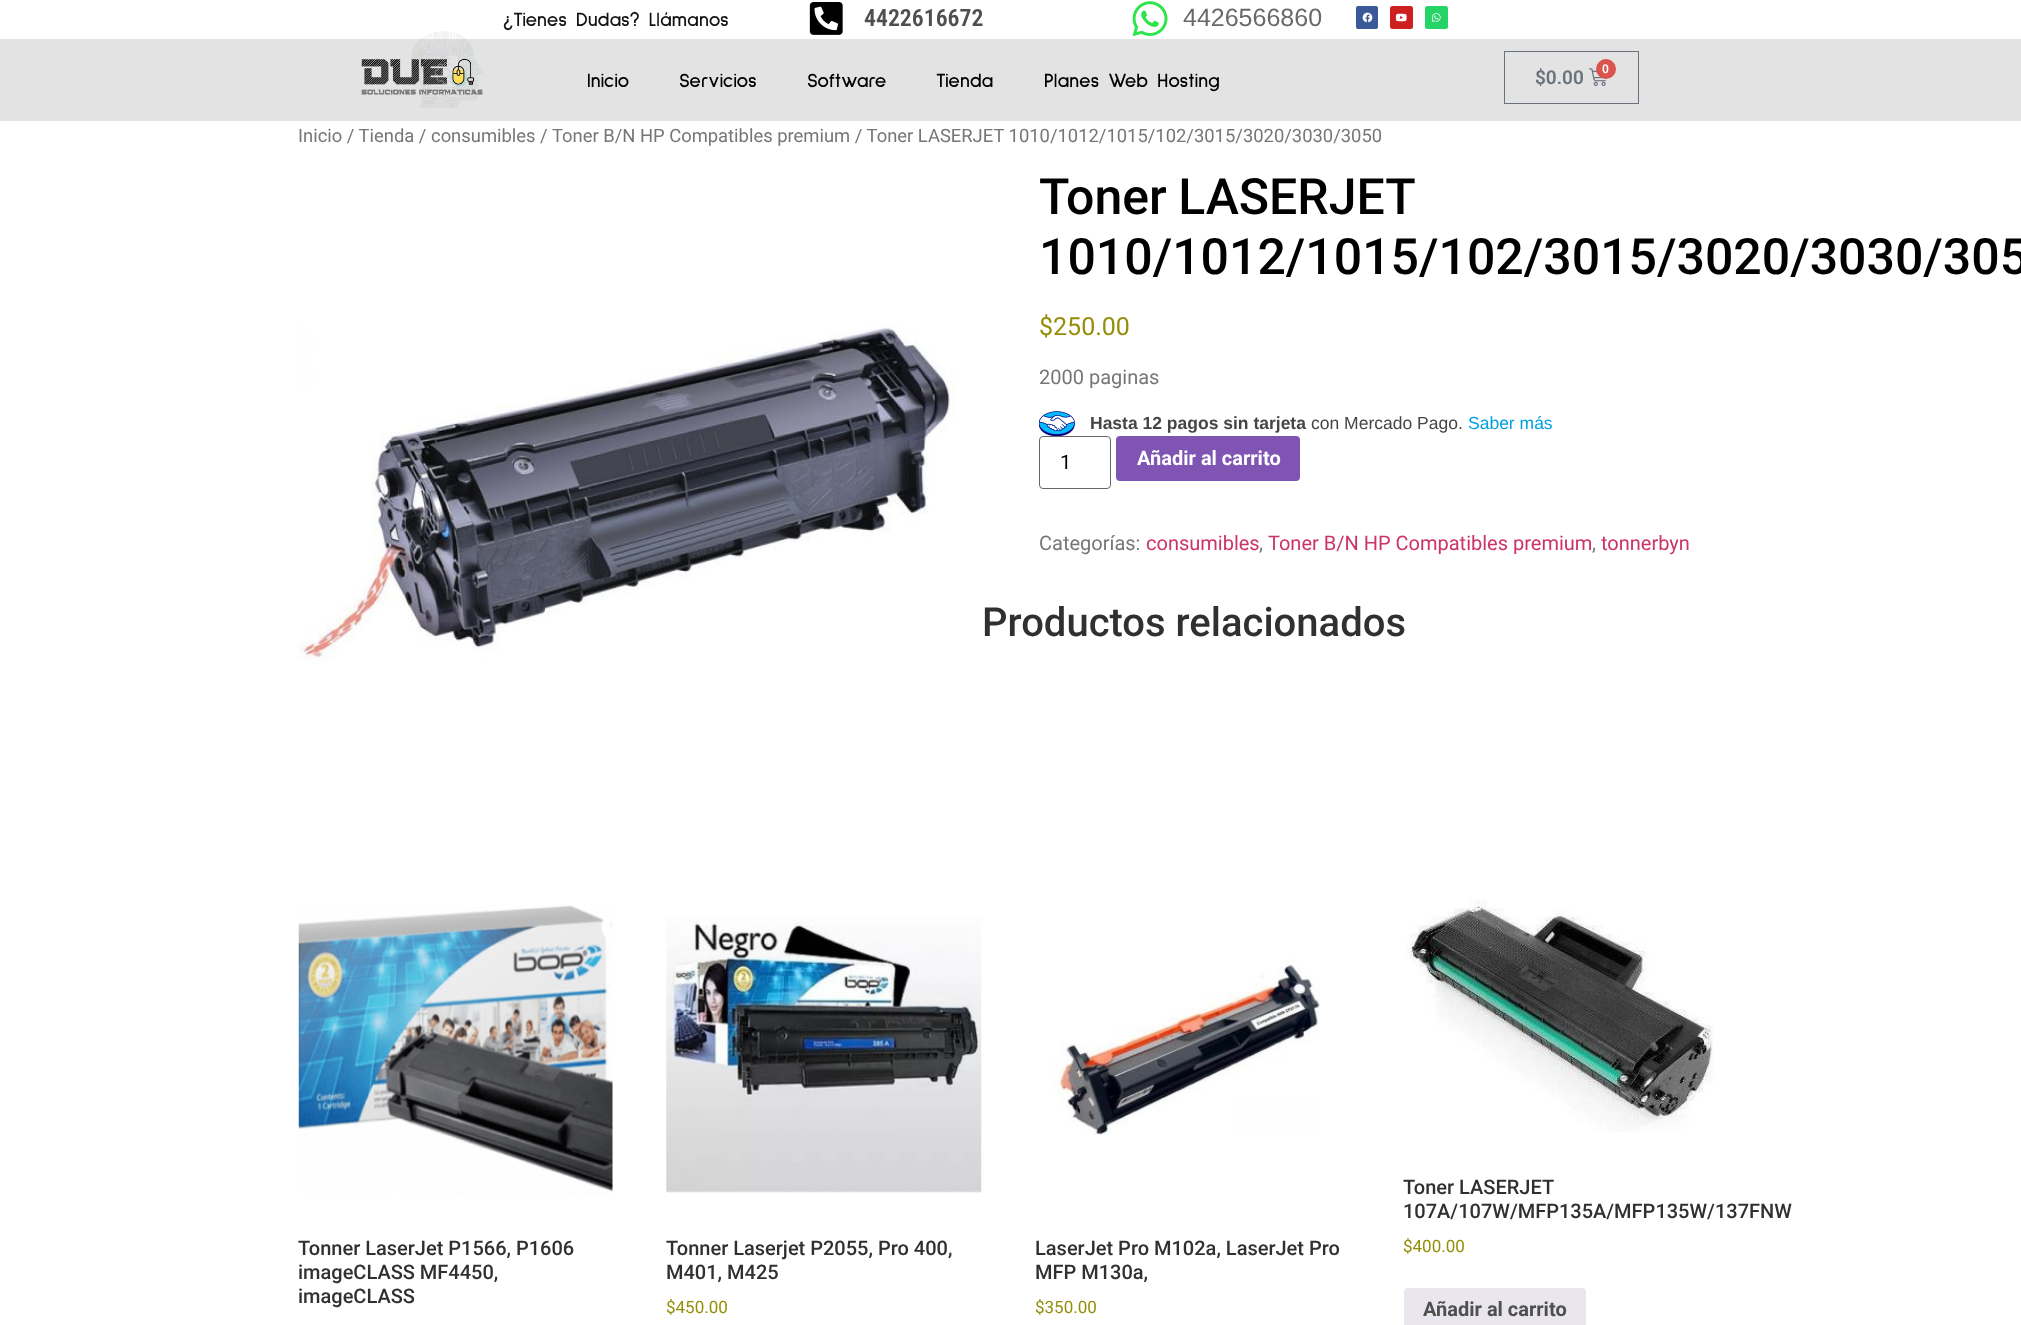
<!DOCTYPE html>
<meta charset="utf-8">
<style>body { margin: 0 } canvas { display: block }</style>
<canvas id="canvas" width="2021" height="1325"></canvas>
<img id="img1" src="img_01.png" hidden>
<img id="img2" src="img_02.png" hidden>
<img id="img3" src="img_03.png" hidden>
<img id="img4" src="img_04.png" hidden>
<img id="img5" src="img_05.png" hidden>
<img id="img6" src="img_06.png" hidden>
<img id="img7" src="img_07.png" hidden>
<img id="img8" src="img_08.png" hidden>
<img id="img9" src="img_09.png" hidden>
<img id="img10" src="img_10.png" hidden>
<img id="img11" src="img_11.png" hidden>
<img id="img12" src="img_12.png" hidden>
<img id="img13" src="img_13.png" hidden>
<script>
window.onload = function () {
	const canvas = document.getElementById("canvas");
	const ctx = canvas.getContext("2d");
	ctx.miterLimit = 4;
	ctx.fontKerning = "normal";
	function txt(s, x, y) {
		ctx.fillText(s, x, y);
	}
	function fill(x, y, w, h) {
		ctx.fillRect(x, y, w, h);
	}
	function round(x, y, w, h, r) {
		ctx.beginPath();
		ctx.roundRect(x, y, w, h, r);
		ctx.fill();
	}
	function img(id, x, y, w, h) {
		ctx.drawImage(document.getElementById(id), x, y, w, h);
	}

	ctx.fillStyle = "#FFFFFF";
	fill(0, 0, 2021, 1325);
	img("img1", 809, 2, 34, 33);
	img("img2", 1132, 1, 36, 36);
	ctx.fillStyle = "#3B5998";
	round(1356, 6, 22, 23, 2);
	img("img3", 1362, 12, 11, 11);
	ctx.fillStyle = "#CD201F";
	round(1390, 6, 23, 23, 2.5);
	img("img4", 1395, 13, 12, 9);
	ctx.fillStyle = "#25D366";
	round(1425, 6, 23, 23, 2.5);
	img("img5", 1431, 13, 10, 9);
	ctx.fillStyle = "#E3E3E3";
	fill(0, 39, 2021, 82);
	img("img6", 361, 31, 122, 77);
	ctx.strokeStyle = "#69727D";
	ctx.strokeRect(1504.5, 51.5, 134, 52);
	img("img7", 1589, 68, 17, 18);
	ctx.fillStyle = "#D9534F";
	ctx.beginPath();
	ctx.arc(1606, 69, 10, 0, Math.PI * 2);
	ctx.fill();
	img("img8", 299, 326, 656, 334);
	img("img9", 1039, 411, 36, 25);
	ctx.beginPath();
	ctx.roundRect(1039.5, 436.5, 71, 52, 3.5);
	ctx.strokeStyle = "#666666";
	ctx.stroke();
	ctx.fillStyle = "#7F54B3";
	round(1116, 436, 184, 45, 4);
	img("img10", 298, 904, 315, 290);
	img("img11", 666, 916, 316, 277);
	img("img12", 1052, 959, 268, 176);
	img("img13", 1406, 899, 308, 233);
	ctx.fillStyle = "#E9E6ED";
	round(1404, 1288, 182, 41, 4);
	ctx.font = "bold 20px Sulphur Point";
	ctx.fillStyle = "#131313";
	txt("¿Tienes Dudas? Llámanos", 503, 26);
	ctx.font = "600 23.75px Roboto Condensed";
	ctx.fillStyle = "#4F4F4F";
	txt("4422616672", 864, 26);
	ctx.font = "25px Liberation Sans";
	ctx.fillStyle = "#696969";
	txt("4426566860", 1183, 26);
	ctx.font = "bold 20px Sulphur Point";
	ctx.fillStyle = "#000000";
	txt("Inicio", 587, 87);
	txt("Servicios", 679, 87);
	txt("Software", 807, 87);
	txt("Tienda", 936, 87);
	txt("Planes Web Hosting", 1044, 87);
	ctx.font = "600 19px Roboto";
	ctx.fillStyle = "#69727D";
	txt("$0.00", 1535, 84);
	ctx.font = "600 12px Roboto";
	ctx.fillStyle = "#FFFFFF";
	txt("0", 1602, 73);
	ctx.font = "18.4px Roboto";
	ctx.fillStyle = "#767676";
	txt("Inicio / Tienda / consumibles / Toner B/N HP Compatibles premium / Toner LASERJET 1010/1012/1015/102/3015/3020/3030/3050", 298, 142);
	ctx.wordSpacing = "-1px";
	ctx.font = "500 50px Roboto";
	ctx.fillStyle = "#000000";
	txt("Toner LASERJET", 1039, 214);
	ctx.wordSpacing = "0px";
	txt("1010/1012/1015/102/3015/3020/3030/305", 1039, 274);
	ctx.font = "25px Roboto";
	ctx.fillStyle = "#958E09";
	txt("$250.00", 1039, 335);
	ctx.font = "20px Roboto";
	ctx.fillStyle = "#767676";
	txt("2000 paginas", 1039, 384);
	ctx.font = "bold 17.5px Liberation Sans";
	ctx.fillStyle = "#464545";
	txt("Hasta 12 pagos sin tarjeta", 1090, 429);
	ctx.font = "17.5px Liberation Sans";
	txt("con Mercado Pago.", 1311, 429);
	ctx.fillStyle = "#009EE3";
	txt("Saber más", 1468, 429);
	ctx.font = "20px Roboto";
	ctx.fillStyle = "#000000";
	txt("1", 1060, 469);
	ctx.font = "bold 20px Roboto";
	ctx.fillStyle = "#FFFFFF";
	txt("Añadir al carrito", 1137, 465);
	ctx.font = "20px Roboto";
	ctx.fillStyle = "#767676";
	txt("Categorías:", 1039, 550);
	ctx.fillStyle = "#CC3366";
	txt("consumibles", 1146, 550);
	ctx.fillStyle = "#767676";
	txt(",", 1259, 550);
	ctx.fillStyle = "#CC3366";
	txt("Toner B/N HP Compatibles premium", 1268, 550);
	ctx.fillStyle = "#767676";
	txt(",", 1592, 550);
	ctx.fillStyle = "#CC3366";
	txt("tonnerbyn", 1601, 550);
	ctx.font = "500 40px Roboto";
	ctx.fillStyle = "#303030";
	txt("Productos relacionados", 982, 636);
	ctx.font = "500 20px Roboto";
	txt("Tonner LaserJet P1566, P1606", 298, 1255);
	txt("imageCLASS MF4450,", 298, 1279);
	txt("imageCLASS", 298, 1303);
	txt("Tonner Laserjet P2055, Pro 400,", 666, 1255);
	txt("M401, M425", 666, 1279);
	ctx.font = "17px Roboto";
	ctx.fillStyle = "#958E09";
	txt("$450.00", 666, 1313);
	ctx.font = "500 20px Roboto";
	ctx.fillStyle = "#303030";
	txt("LaserJet Pro M102a, LaserJet Pro", 1035, 1255);
	txt("MFP M130a,", 1035, 1279);
	ctx.font = "17px Roboto";
	ctx.fillStyle = "#958E09";
	txt("$350.00", 1035, 1313);
	ctx.font = "500 20px Roboto";
	ctx.fillStyle = "#303030";
	txt("Toner LASERJET", 1403, 1194);
	txt("107A/107W/MFP135A/MFP135W/137FNW", 1403, 1218);
	ctx.font = "17px Roboto";
	ctx.fillStyle = "#958E09";
	txt("$400.00", 1403, 1252);
	ctx.font = "bold 20px Roboto";
	ctx.fillStyle = "#4F4F4F";
	txt("Añadir al carrito", 1423, 1316);
};
</script>
